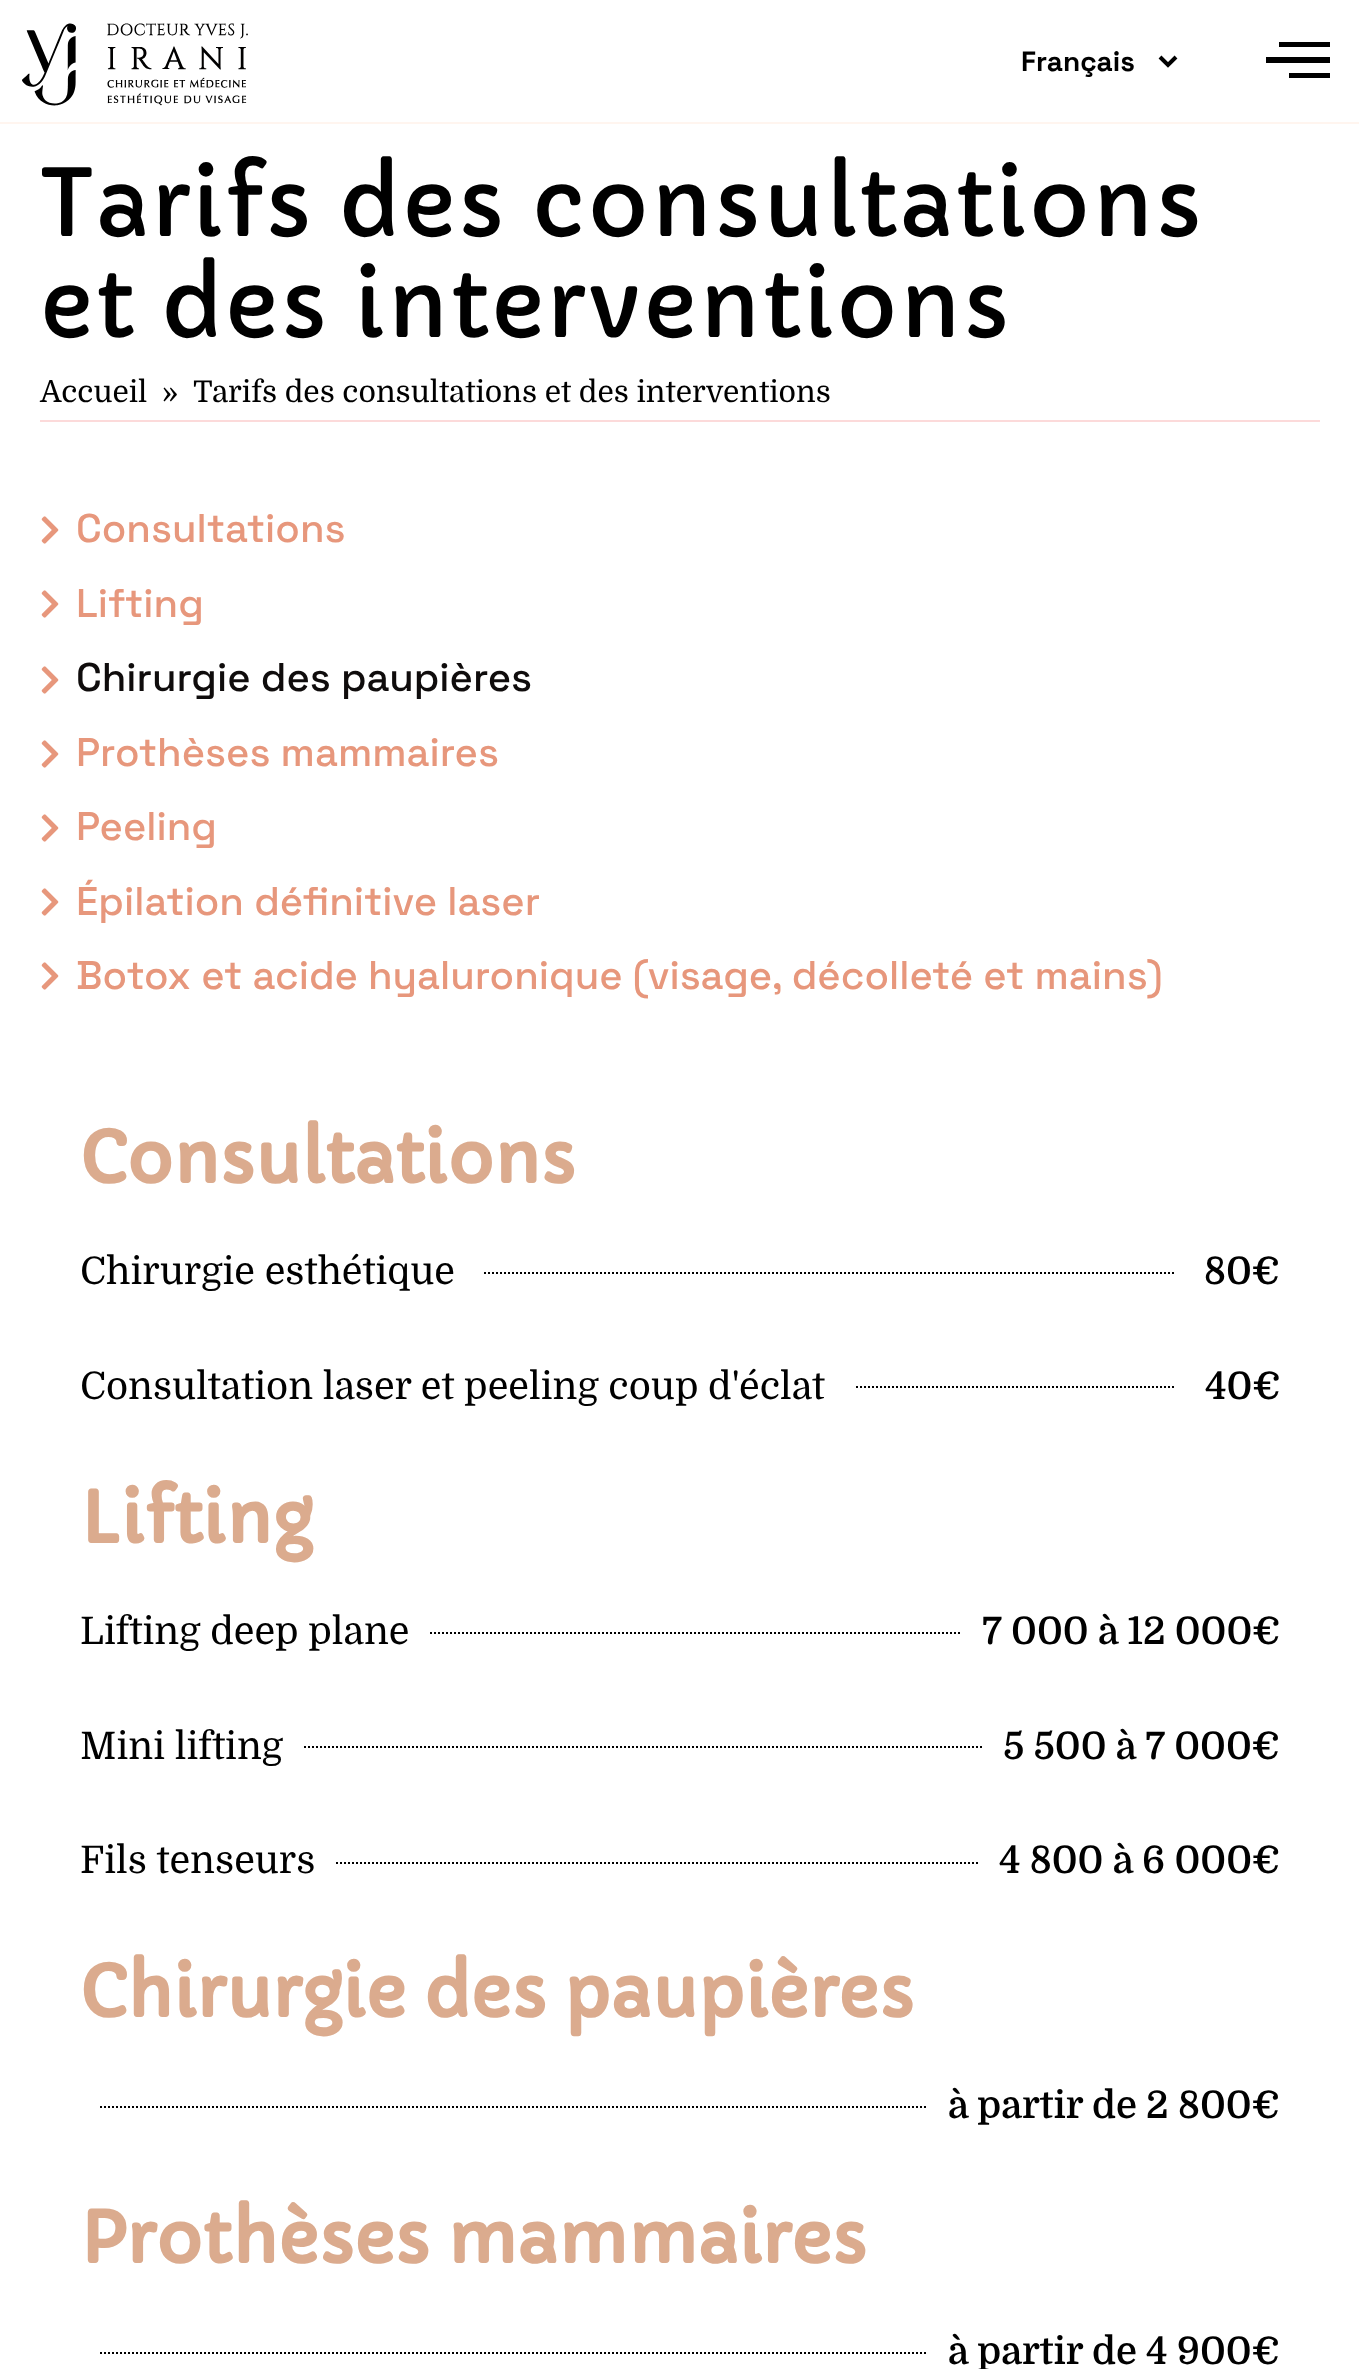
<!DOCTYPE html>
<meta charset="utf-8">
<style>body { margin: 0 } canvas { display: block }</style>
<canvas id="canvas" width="1359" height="2369"></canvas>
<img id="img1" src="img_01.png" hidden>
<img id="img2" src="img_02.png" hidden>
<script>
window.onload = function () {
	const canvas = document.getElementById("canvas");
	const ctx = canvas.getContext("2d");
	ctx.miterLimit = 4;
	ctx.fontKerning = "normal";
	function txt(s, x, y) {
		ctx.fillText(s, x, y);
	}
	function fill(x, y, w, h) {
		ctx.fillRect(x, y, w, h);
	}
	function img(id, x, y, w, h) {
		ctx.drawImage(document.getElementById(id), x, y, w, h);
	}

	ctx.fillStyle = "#FFFFFF";
	fill(0, 0, 1359, 2369);
	ctx.fillStyle = "#FFF5EF";
	fill(0, 122, 1359, 2);
	img("img1", 22, 23, 226, 83);
	ctx.beginPath();
	ctx.moveTo(1160, 57);
	ctx.lineTo(1168, 65);
	ctx.lineTo(1176, 57);
	ctx.strokeStyle = "#000000";
	ctx.lineWidth = 4;
	ctx.stroke();
	ctx.fillStyle = "#000000";
	ctx.beginPath();
	ctx.moveTo(1266, 63);
	ctx.lineTo(1330, 63);
	ctx.lineTo(1330, 57);
	ctx.lineTo(1266, 57);
	ctx.closePath();
	ctx.moveTo(1289, 78);
	ctx.lineTo(1330, 78);
	ctx.lineTo(1330, 73);
	ctx.lineTo(1289, 73);
	ctx.closePath();
	ctx.moveTo(1279, 42);
	ctx.lineTo(1279, 47);
	ctx.lineTo(1330, 47);
	ctx.lineTo(1330, 42);
	ctx.closePath();
	ctx.fill();
	ctx.fillStyle = "#FCDADA";
	fill(40, 420, 1280, 2);
	img("img2", 41, 516, 18, 28);
	img("img2", 41, 590, 18, 28);
	img("img2", 41, 666, 18, 28);
	img("img2", 41, 740, 18, 28);
	img("img2", 41, 814, 18, 28);
	img("img2", 41, 888, 18, 28);
	img("img2", 41, 962, 18, 28);
	ctx.beginPath();
	ctx.moveTo(484, 1273);
	ctx.lineTo(1174, 1273);
	ctx.lineWidth = 2;
	ctx.setLineDash([2, 2]);
	ctx.stroke();
	ctx.beginPath();
	ctx.moveTo(856, 1387);
	ctx.lineTo(1174, 1387);
	ctx.stroke();
	ctx.beginPath();
	ctx.moveTo(430, 1633);
	ctx.lineTo(962, 1633);
	ctx.stroke();
	ctx.beginPath();
	ctx.moveTo(304, 1747);
	ctx.lineTo(984, 1747);
	ctx.stroke();
	ctx.beginPath();
	ctx.moveTo(336, 1863);
	ctx.lineTo(980, 1863);
	ctx.stroke();
	ctx.beginPath();
	ctx.moveTo(100, 2107);
	ctx.lineTo(928, 2107);
	ctx.stroke();
	ctx.beginPath();
	ctx.moveTo(100, 2353);
	ctx.lineTo(928, 2353);
	ctx.stroke();
	ctx.font = "bold 28px Space Grotesk";
	ctx.fillStyle = "#000000";
	txt("Français", 1021, 71);
	ctx.letterSpacing = "2.2px";
	ctx.font = "92px Capriola";
	txt("Tarifs des consultations", 40, 236);
	txt("et des interventions", 40, 337);
	ctx.letterSpacing = "0px";
	ctx.font = "30px Domine";
	txt("Accueil", 40, 402);
	txt("»", 162, 402);
	txt("Tarifs des consultations et des interventions", 193, 402);
	ctx.font = "500 40px Space Grotesk";
	ctx.fillStyle = "#E7977C";
	txt("Consultations", 76, 542);
	txt("Lifting", 76, 617);
	ctx.fillStyle = "#0F0C0C";
	txt("Chirurgie des paupières", 76, 691);
	ctx.fillStyle = "#E7977C";
	txt("Prothèses mammaires", 76, 766);
	txt("Peeling", 76, 840);
	txt("Épilation définitive laser", 76, 915);
	txt("Botox et acide hyaluronique (visage, décolleté et mains)", 76, 989);
	ctx.font = "bold 70px Capriola";
	ctx.fillStyle = "#DBAB8E";
	txt("Consultations", 80, 1183);
	ctx.font = "38px Domine";
	ctx.fillStyle = "#000000";
	txt("Chirurgie esthétique", 80, 1284);
	ctx.font = "600 38px Domine";
	txt("80€", 1204, 1284);
	ctx.font = "38px Domine";
	txt("Consultation laser et peeling coup d'éclat", 80, 1399);
	ctx.font = "600 38px Domine";
	txt("40€", 1205, 1399);
	ctx.font = "bold 70px Capriola";
	ctx.fillStyle = "#DBAB8E";
	txt("Lifting", 80, 1543);
	ctx.font = "38px Domine";
	ctx.fillStyle = "#000000";
	txt("Lifting deep plane", 80, 1644);
	ctx.font = "600 38px Domine";
	txt("7 000 à 12 000€", 982, 1644);
	ctx.font = "38px Domine";
	txt("Mini lifting", 80, 1759);
	ctx.font = "600 38px Domine";
	txt("5 500 à 7 000€", 1003, 1759);
	ctx.font = "38px Domine";
	txt("Fils tenseurs", 80, 1873);
	ctx.font = "600 38px Domine";
	txt("4 800 à 6 000€", 999, 1873);
	ctx.font = "bold 70px Capriola";
	ctx.fillStyle = "#DBAB8E";
	txt("Chirurgie des paupières", 80, 2017);
	ctx.font = "600 38px Domine";
	ctx.fillStyle = "#000000";
	txt("à partir de 2 800€", 948, 2118);
	ctx.font = "bold 70px Capriola";
	ctx.fillStyle = "#DBAB8E";
	txt("Prothèses mammaires", 80, 2263);
	ctx.font = "600 38px Domine";
	ctx.fillStyle = "#000000";
	txt("à partir de 4 900€", 948, 2364);
};
</script>
